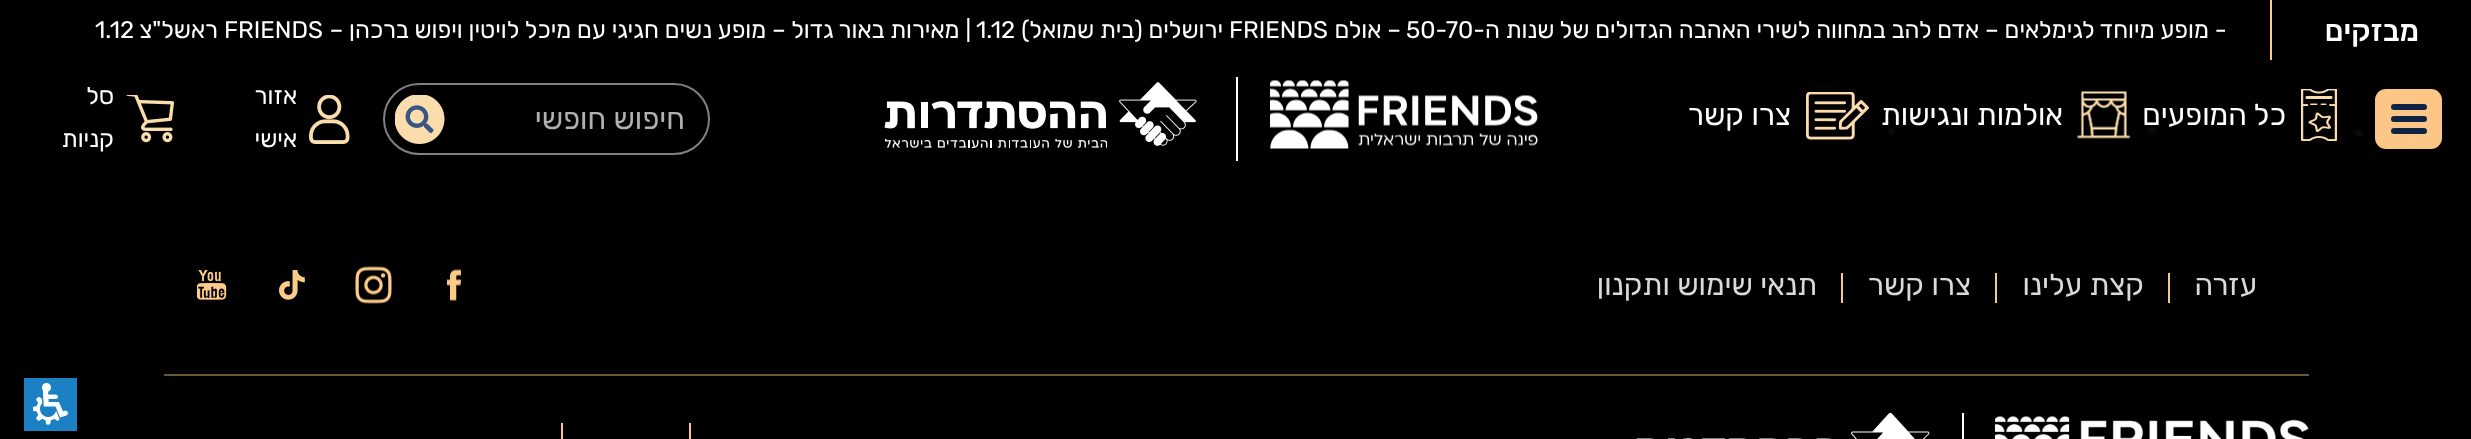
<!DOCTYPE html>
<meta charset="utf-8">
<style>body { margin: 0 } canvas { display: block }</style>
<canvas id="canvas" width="2471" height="439"></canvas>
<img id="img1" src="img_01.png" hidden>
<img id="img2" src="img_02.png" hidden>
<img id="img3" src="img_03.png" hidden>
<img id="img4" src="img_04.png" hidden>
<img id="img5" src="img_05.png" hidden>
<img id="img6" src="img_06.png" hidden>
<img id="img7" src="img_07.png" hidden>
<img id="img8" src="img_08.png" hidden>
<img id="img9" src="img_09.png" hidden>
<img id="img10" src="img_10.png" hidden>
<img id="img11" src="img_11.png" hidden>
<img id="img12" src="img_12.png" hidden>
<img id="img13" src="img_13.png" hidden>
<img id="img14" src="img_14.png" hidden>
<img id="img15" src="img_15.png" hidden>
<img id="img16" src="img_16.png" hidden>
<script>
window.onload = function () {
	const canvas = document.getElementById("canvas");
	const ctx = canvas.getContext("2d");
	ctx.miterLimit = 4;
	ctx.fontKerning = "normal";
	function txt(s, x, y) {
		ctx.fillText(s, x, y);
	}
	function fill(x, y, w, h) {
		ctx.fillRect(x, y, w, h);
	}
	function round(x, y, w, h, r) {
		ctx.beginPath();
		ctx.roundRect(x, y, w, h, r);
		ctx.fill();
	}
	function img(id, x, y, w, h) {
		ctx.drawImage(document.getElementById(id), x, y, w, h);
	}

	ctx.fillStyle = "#000000";
	fill(0, 0, 2471, 439);
	ctx.fillStyle = "#FCCB87";
	fill(2270, 0, 2, 60);
	ctx.fillStyle = "#FCC687";
	round(2375, 89, 67, 60, 11);
	ctx.fillStyle = "#0F2344";
	round(2391, 104, 36, 6, 3);
	round(2391, 116, 36, 6, 3);
	round(2391, 128, 36, 6, 3);
	img("img1", 2301, 89, 36, 52);
	ctx.fillStyle = "#0A0A0A";
	ctx.beginPath();
	ctx.arc(2359, 133, 4, 0, Math.PI * 2);
	ctx.fill();
	img("img2", 2077, 91, 54, 48);
	round(1887, 128, 8, 7, 3.5);
	img("img3", 1806, 92, 63, 48);
	ctx.fillStyle = "#FFFFFF";
	fill(1236, 77, 2, 84);
	img("img4", 1270, 80, 268, 69);
	img("img5", 1119, 82, 78, 64);
	img("img6", 884, 101, 223, 47);
	img("img7", 395, 95, 50, 49);
	ctx.beginPath();
	ctx.roundRect(384, 84, 325, 70, 35);
	ctx.strokeStyle = "#808080";
	ctx.lineWidth = 2;
	ctx.stroke();
	img("img8", 309, 95, 41, 49);
	img("img9", 126, 95, 48, 48);
	ctx.fillStyle = "#6A5539";
	fill(164, 374, 2145, 2);
	ctx.fillStyle = "#FCC687";
	fill(2168, 273, 2, 30);
	fill(1995, 273, 2, 30);
	fill(1841, 273, 2, 30);
	img("img10", 447, 269, 14, 32);
	img("img11", 355, 266, 37, 38);
	img("img12", 279, 270, 26, 30);
	img("img13", 197, 270, 30, 30);
	img("img14", 1995, 416, 314, 23);
	ctx.fillStyle = "#FFFFFF";
	fill(1962, 413, 2, 26);
	img("img15", 1636, 413, 294, 26);
	ctx.fillStyle = "#FCC687";
	fill(689, 423, 2, 16);
	fill(561, 423, 2, 16);
	ctx.fillStyle = "#1B80C4";
	fill(24, 378, 53, 53);
	img("img16", 33, 383, 35, 42);
	ctx.direction = "rtl";
	ctx.font = "500 30px Rubik";
	ctx.fillStyle = "#FFFFFF";
	txt("מבזקים", 2419, 41);
	ctx.save();
	ctx.beginPath();
	ctx.rect(0, 18, 2225, 24);
	ctx.clip();
	ctx.font = "24px Rubik";
	txt("לאב סטורי – מופע מיוחד לגימלאים – אדם להב במחווה לשירי האהבה הגדולים של שנות ה-", 2335, 38);
	ctx.restore();
	ctx.direction = "ltr";
	ctx.font = "24px Rubik";
	txt("50-70", 1406, 38);
	ctx.direction = "rtl";
	txt("– אולם", 1401, 38);
	ctx.direction = "ltr";
	txt("FRIENDS", 1229, 38);
	ctx.direction = "rtl";
	txt("ירושלים (בית שמואל)", 1223, 38);
	ctx.direction = "ltr";
	txt("1.12", 976, 38);
	ctx.save();
	ctx.beginPath();
	ctx.rect(0, 18, 2225, 24);
	ctx.clip();
	ctx.direction = "rtl";
	txt("| מאירות באור גדול – מופע נשים חגיגי עם מיכל לויטין ויפוש ברכהן –", 971, 38);
	ctx.restore();
	txt("FRIENDS", 224, 38);
	ctx.direction = "rtl";
	txt("ראשל\"צ", 218, 38);
	ctx.direction = "ltr";
	txt("1.12", 95, 38);
	ctx.direction = "rtl";
	ctx.font = "30px Rubik";
	txt("כל המופעים", 2286, 125);
	txt("אולמות ונגישות", 2063, 125);
	ctx.fillStyle = "#0A0A0A";
	ctx.beginPath();
	ctx.arc(2152, 130, 4, 0, Math.PI * 2);
	ctx.fill();
	ctx.fillStyle = "#FFFFFF";
	txt("צרו קשר", 1791, 125);
	ctx.fillStyle = "#B0B0B0";
	txt("חיפוש חופשי", 685, 129);
	ctx.font = "24px Rubik";
	ctx.fillStyle = "#FFFFFF";
	txt("אזור", 297, 104);
	txt("אישי", 297, 147);
	txt("סל", 114, 104);
	txt("קניות", 114, 147);
	ctx.font = "30px Rubik";
	ctx.fillStyle = "#D9D9D9";
	txt("עזרה", 2257, 295);
	txt("קצת עלינו", 2144, 295);
	txt("צרו קשר", 1971, 295);
	txt("תנאי שימוש ותקנון", 1817, 295);
};
</script>
